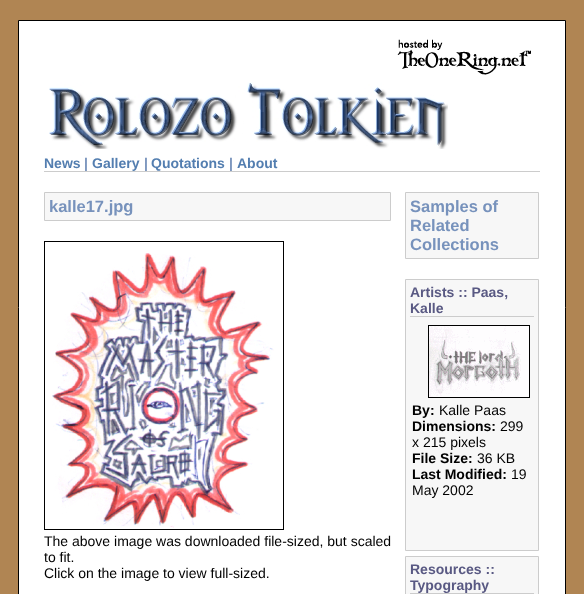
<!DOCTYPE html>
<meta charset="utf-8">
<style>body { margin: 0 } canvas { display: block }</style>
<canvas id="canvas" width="584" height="594"></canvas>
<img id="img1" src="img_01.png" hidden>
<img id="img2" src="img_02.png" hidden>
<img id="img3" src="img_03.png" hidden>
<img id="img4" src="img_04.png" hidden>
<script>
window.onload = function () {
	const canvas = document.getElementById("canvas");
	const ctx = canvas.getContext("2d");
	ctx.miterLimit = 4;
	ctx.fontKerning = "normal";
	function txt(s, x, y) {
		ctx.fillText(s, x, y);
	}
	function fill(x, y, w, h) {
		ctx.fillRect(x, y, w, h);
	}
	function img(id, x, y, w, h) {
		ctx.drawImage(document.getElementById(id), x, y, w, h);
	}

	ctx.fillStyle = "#B08553";
	fill(0, 0, 584, 594);
	ctx.fillStyle = "#FFFFFF";
	ctx.beginPath();
	ctx.rect(18.5, 20.5, 547, 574);
	ctx.fill();
	ctx.strokeStyle = "#000000";
	ctx.stroke();
	img("img1", 397, 39, 134, 36);
	img("img2", 49, 82, 399, 67);
	ctx.fillStyle = "#CCCCCC";
	fill(44, 171, 496, 1);
	ctx.fillStyle = "#F7F7F7";
	ctx.beginPath();
	ctx.rect(44.5, 192.5, 346, 28);
	ctx.fill();
	ctx.strokeStyle = "#CCCCCC";
	ctx.stroke();
	ctx.strokeStyle = "#000000";
	ctx.strokeRect(44.5, 241.5, 239, 288);
	img("img3", 52, 253, 222, 275);
	ctx.beginPath();
	ctx.rect(405.5, 192.5, 133, 66);
	ctx.fill();
	ctx.strokeStyle = "#CCCCCC";
	ctx.stroke();
	ctx.beginPath();
	ctx.rect(405.5, 279.5, 133, 271);
	ctx.fill();
	ctx.stroke();
	ctx.fillStyle = "#CCCCCC";
	fill(410, 316, 124, 1);
	ctx.strokeStyle = "#000000";
	ctx.strokeRect(428.5, 325.5, 101, 72);
	img("img4", 429, 326, 100, 71);
	ctx.fillStyle = "#F7F7F7";
	ctx.beginPath();
	ctx.rect(405.5, 556.5, 133, 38);
	ctx.fill();
	ctx.strokeStyle = "#CCCCCC";
	ctx.stroke();
	ctx.fillStyle = "#CCCCCC";
	fill(410, 593, 124, 1);
	ctx.font = "bold 14px Liberation Sans";
	ctx.fillStyle = "#537EB0";
	txt("News", 44, 168);
	ctx.fillStyle = "#7792BC";
	txt("|", 84, 168);
	ctx.fillStyle = "#537EB0";
	txt("Gallery", 92, 168);
	ctx.fillStyle = "#7792BC";
	txt("|", 144, 168);
	ctx.fillStyle = "#537EB0";
	txt("Quotations", 151, 168);
	ctx.fillStyle = "#7792BC";
	txt("|", 229, 168);
	ctx.fillStyle = "#537EB0";
	txt("About", 237, 168);
	ctx.font = "bold 16.5px Liberation Sans";
	ctx.fillStyle = "#7792BC";
	txt("kalle17.jpg", 49, 212);
	ctx.font = "14px Liberation Sans";
	ctx.fillStyle = "#000000";
	txt("The above image was downloaded file-sized, but scaled", 44, 546);
	txt("to fit.", 44, 562);
	txt("Click on the image to view full-sized.", 44, 578);
	ctx.font = "bold 16.5px Liberation Sans";
	ctx.fillStyle = "#7792BC";
	txt("Samples of", 410, 212);
	txt("Related", 410, 231);
	txt("Collections", 410, 250);
	ctx.font = "bold 14px Liberation Sans";
	ctx.fillStyle = "#595983";
	txt("Artists :: Paas,", 410, 297);
	txt("Kalle", 410, 313);
	ctx.fillStyle = "#000000";
	txt("By:", 412, 415);
	ctx.font = "14px Liberation Sans";
	txt("Kalle Paas", 439, 415);
	ctx.font = "bold 14px Liberation Sans";
	txt("Dimensions:", 412, 431);
	ctx.font = "14px Liberation Sans";
	txt("299", 500, 431);
	txt("x 215 pixels", 412, 447);
	ctx.font = "bold 14px Liberation Sans";
	txt("File Size:", 412, 463);
	ctx.font = "14px Liberation Sans";
	txt("36 KB", 477, 463);
	ctx.font = "bold 14px Liberation Sans";
	txt("Last Modified:", 412, 479);
	ctx.font = "14px Liberation Sans";
	txt("19", 511, 479);
	txt("May 2002", 412, 495);
	ctx.font = "bold 14px Liberation Sans";
	ctx.fillStyle = "#595983";
	txt("Resources ::", 410, 574);
	txt("Typography", 410, 590);
};
</script>
